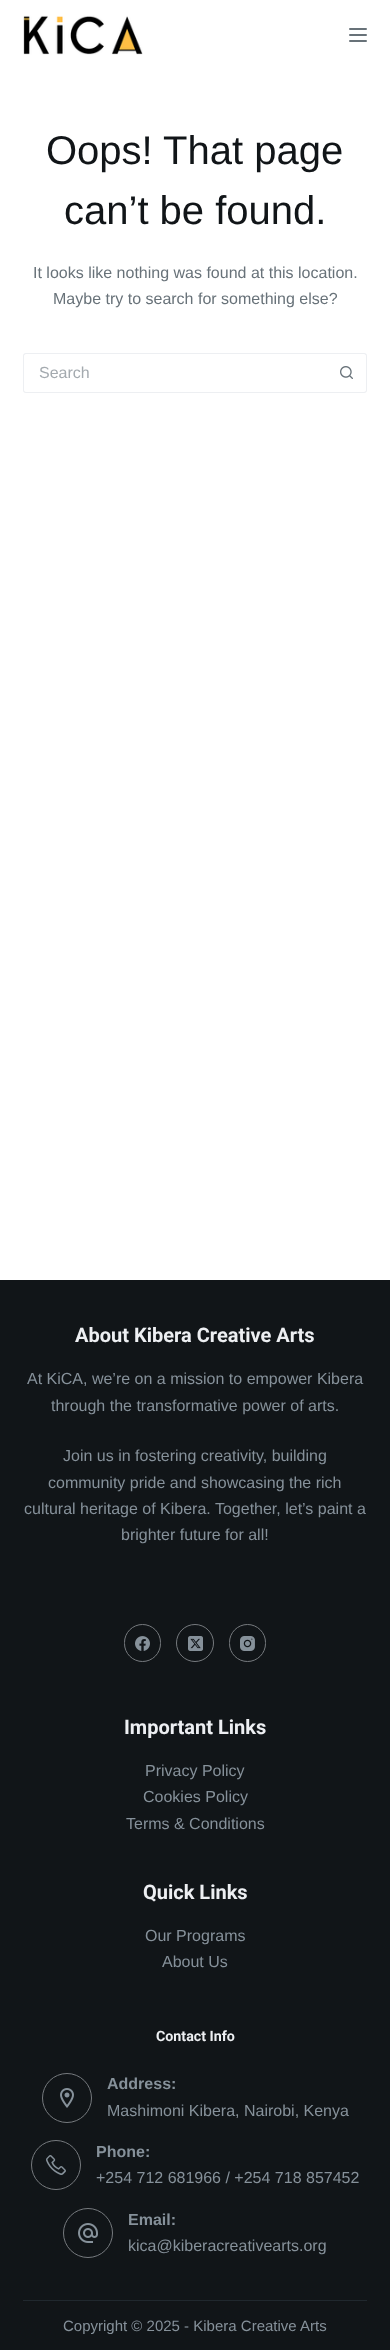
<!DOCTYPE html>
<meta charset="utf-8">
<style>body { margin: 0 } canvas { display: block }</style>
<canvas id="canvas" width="390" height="2350"></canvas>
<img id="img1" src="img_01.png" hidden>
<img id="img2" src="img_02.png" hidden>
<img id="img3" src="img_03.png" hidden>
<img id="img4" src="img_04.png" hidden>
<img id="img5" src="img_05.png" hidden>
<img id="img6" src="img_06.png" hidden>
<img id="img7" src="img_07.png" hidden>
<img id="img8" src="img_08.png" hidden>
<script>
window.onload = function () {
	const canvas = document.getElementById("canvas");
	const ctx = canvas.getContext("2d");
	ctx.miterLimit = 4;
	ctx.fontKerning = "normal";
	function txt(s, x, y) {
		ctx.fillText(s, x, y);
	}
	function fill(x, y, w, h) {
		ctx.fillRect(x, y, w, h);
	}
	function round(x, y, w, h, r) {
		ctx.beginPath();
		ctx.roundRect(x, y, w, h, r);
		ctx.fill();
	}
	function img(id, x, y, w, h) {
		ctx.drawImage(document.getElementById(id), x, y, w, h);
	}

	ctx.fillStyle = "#FFFFFF";
	fill(0, 0, 390, 2350);
	img("img1", 23, 15, 120, 40);
	ctx.fillStyle = "#687279";
	round(349, 28, 18, 2, 1);
	round(349, 34, 18, 2, 1);
	round(349, 40, 18, 2, 1);
	ctx.fillStyle = "#EDEFF2";
	ctx.beginPath();
	ctx.moveTo(26, 353);
	ctx.lineTo(327, 353);
	ctx.lineTo(327, 393);
	ctx.lineTo(26, 393);
	ctx.bezierCurveTo(24, 393, 23, 392, 23, 390);
	ctx.lineTo(23, 356);
	ctx.bezierCurveTo(23, 354, 24, 353, 26, 353);
	ctx.closePath();
	ctx.moveTo(26, 354);
	ctx.lineTo(327, 354);
	ctx.lineTo(327, 392);
	ctx.lineTo(26, 392);
	ctx.bezierCurveTo(25, 392, 24, 391, 24, 390);
	ctx.lineTo(24, 356);
	ctx.bezierCurveTo(24, 355, 25, 354, 26, 354);
	ctx.closePath();
	ctx.fill("evenodd");
	ctx.beginPath();
	ctx.moveTo(327, 353);
	ctx.lineTo(364, 353);
	ctx.bezierCurveTo(366, 353, 367, 354, 367, 356);
	ctx.lineTo(367, 390);
	ctx.bezierCurveTo(367, 392, 366, 393, 364, 393);
	ctx.lineTo(327, 393);
	ctx.closePath();
	ctx.moveTo(327, 354);
	ctx.lineTo(364, 354);
	ctx.bezierCurveTo(365, 354, 366, 355, 366, 356);
	ctx.lineTo(366, 390);
	ctx.bezierCurveTo(366, 391, 365, 392, 364, 392);
	ctx.lineTo(327, 392);
	ctx.closePath();
	ctx.fill("evenodd");
	img("img2", 340, 366, 13, 13);
	ctx.fillStyle = "#111518";
	fill(0, 1280, 390, 1070);
	ctx.beginPath();
	ctx.roundRect(124.5, 1624.5, 36, 37, 18);
	ctx.strokeStyle = "#767A7E";
	ctx.stroke();
	img("img3", 135, 1636, 15, 15);
	ctx.beginPath();
	ctx.arc(195, 1643, 18.5, 0, Math.PI * 2);
	ctx.stroke();
	img("img4", 188, 1636, 15, 15);
	ctx.beginPath();
	ctx.roundRect(229.5, 1624.5, 36, 37, 18);
	ctx.stroke();
	img("img5", 240, 1636, 15, 15);
	ctx.beginPath();
	ctx.arc(67, 2098, 24.5, 0, Math.PI * 2);
	ctx.stroke();
	img("img6", 60, 2088, 14, 20);
	ctx.beginPath();
	ctx.arc(56, 2165, 24.5, 0, Math.PI * 2);
	ctx.stroke();
	img("img7", 46, 2155, 20, 20);
	ctx.beginPath();
	ctx.arc(88, 2233, 24.5, 0, Math.PI * 2);
	ctx.stroke();
	img("img8", 78, 2223, 20, 20);
	ctx.fillStyle = "#20282E";
	fill(23, 2300, 344, 1);
	ctx.font = "40px Liberation Sans";
	ctx.fillStyle = "#111518";
	txt("Oops! That page", 46, 164);
	txt("can’t be found.", 64, 224);
	ctx.font = "16px Liberation Sans";
	ctx.fillStyle = "#687279";
	txt("It looks like nothing was found at this location.", 33, 278);
	txt("Maybe try to search for something else?", 53, 304);
	ctx.fillStyle = "#A4AAAF";
	txt("Search", 39, 378);
	ctx.font = "bold 20px Roboto";
	ctx.fillStyle = "#EDEFF2";
	txt("About Kibera Creative Arts", 75, 1342);
	ctx.font = "16px Liberation Sans";
	ctx.fillStyle = "#86919A";
	txt("At KiCA, we’re on a mission to empower Kibera", 27, 1384);
	txt("through the transformative power of arts.", 51, 1411);
	txt("Join us in fostering creativity, building", 63, 1461);
	txt("community pride and showcasing the rich", 48, 1488);
	txt("cultural heritage of Kibera. Together, let’s paint a", 24, 1514);
	txt("brighter future for all!", 121, 1540);
	ctx.font = "bold 20px Roboto";
	ctx.fillStyle = "#EDEFF2";
	txt("Important Links", 124, 1734);
	ctx.font = "16px Liberation Sans";
	ctx.fillStyle = "#86919A";
	txt("Privacy Policy", 145, 1776);
	txt("Cookies Policy", 143, 1802);
	txt("Terms & Conditions", 126, 1829);
	ctx.font = "bold 20px Roboto";
	ctx.fillStyle = "#EDEFF2";
	txt("Quick Links", 143, 1899);
	ctx.font = "16px Liberation Sans";
	ctx.fillStyle = "#86919A";
	txt("Our Programs", 145, 1941);
	txt("About Us", 162, 1967);
	ctx.font = "bold 14.25px Roboto";
	ctx.fillStyle = "#EDEFF2";
	txt("Contact Info", 156, 2041);
	ctx.font = "bold 16px Liberation Sans";
	ctx.fillStyle = "#86919A";
	txt("Address:", 107, 2089);
	ctx.font = "16px Liberation Sans";
	txt("Mashimoni Kibera, Nairobi, Kenya", 107, 2116);
	ctx.font = "bold 16px Liberation Sans";
	txt("Phone:", 96, 2157);
	ctx.font = "16px Liberation Sans";
	txt("+254 712 681966 / +254 718 857452", 96, 2183);
	ctx.font = "bold 16px Liberation Sans";
	txt("Email:", 128, 2225);
	ctx.font = "16px Liberation Sans";
	txt("kica@kiberacreativearts.org", 128, 2251);
	ctx.font = "15px Liberation Sans";
	txt("Copyright © 2025 - Kibera Creative Arts", 63, 2331);
};
</script>
